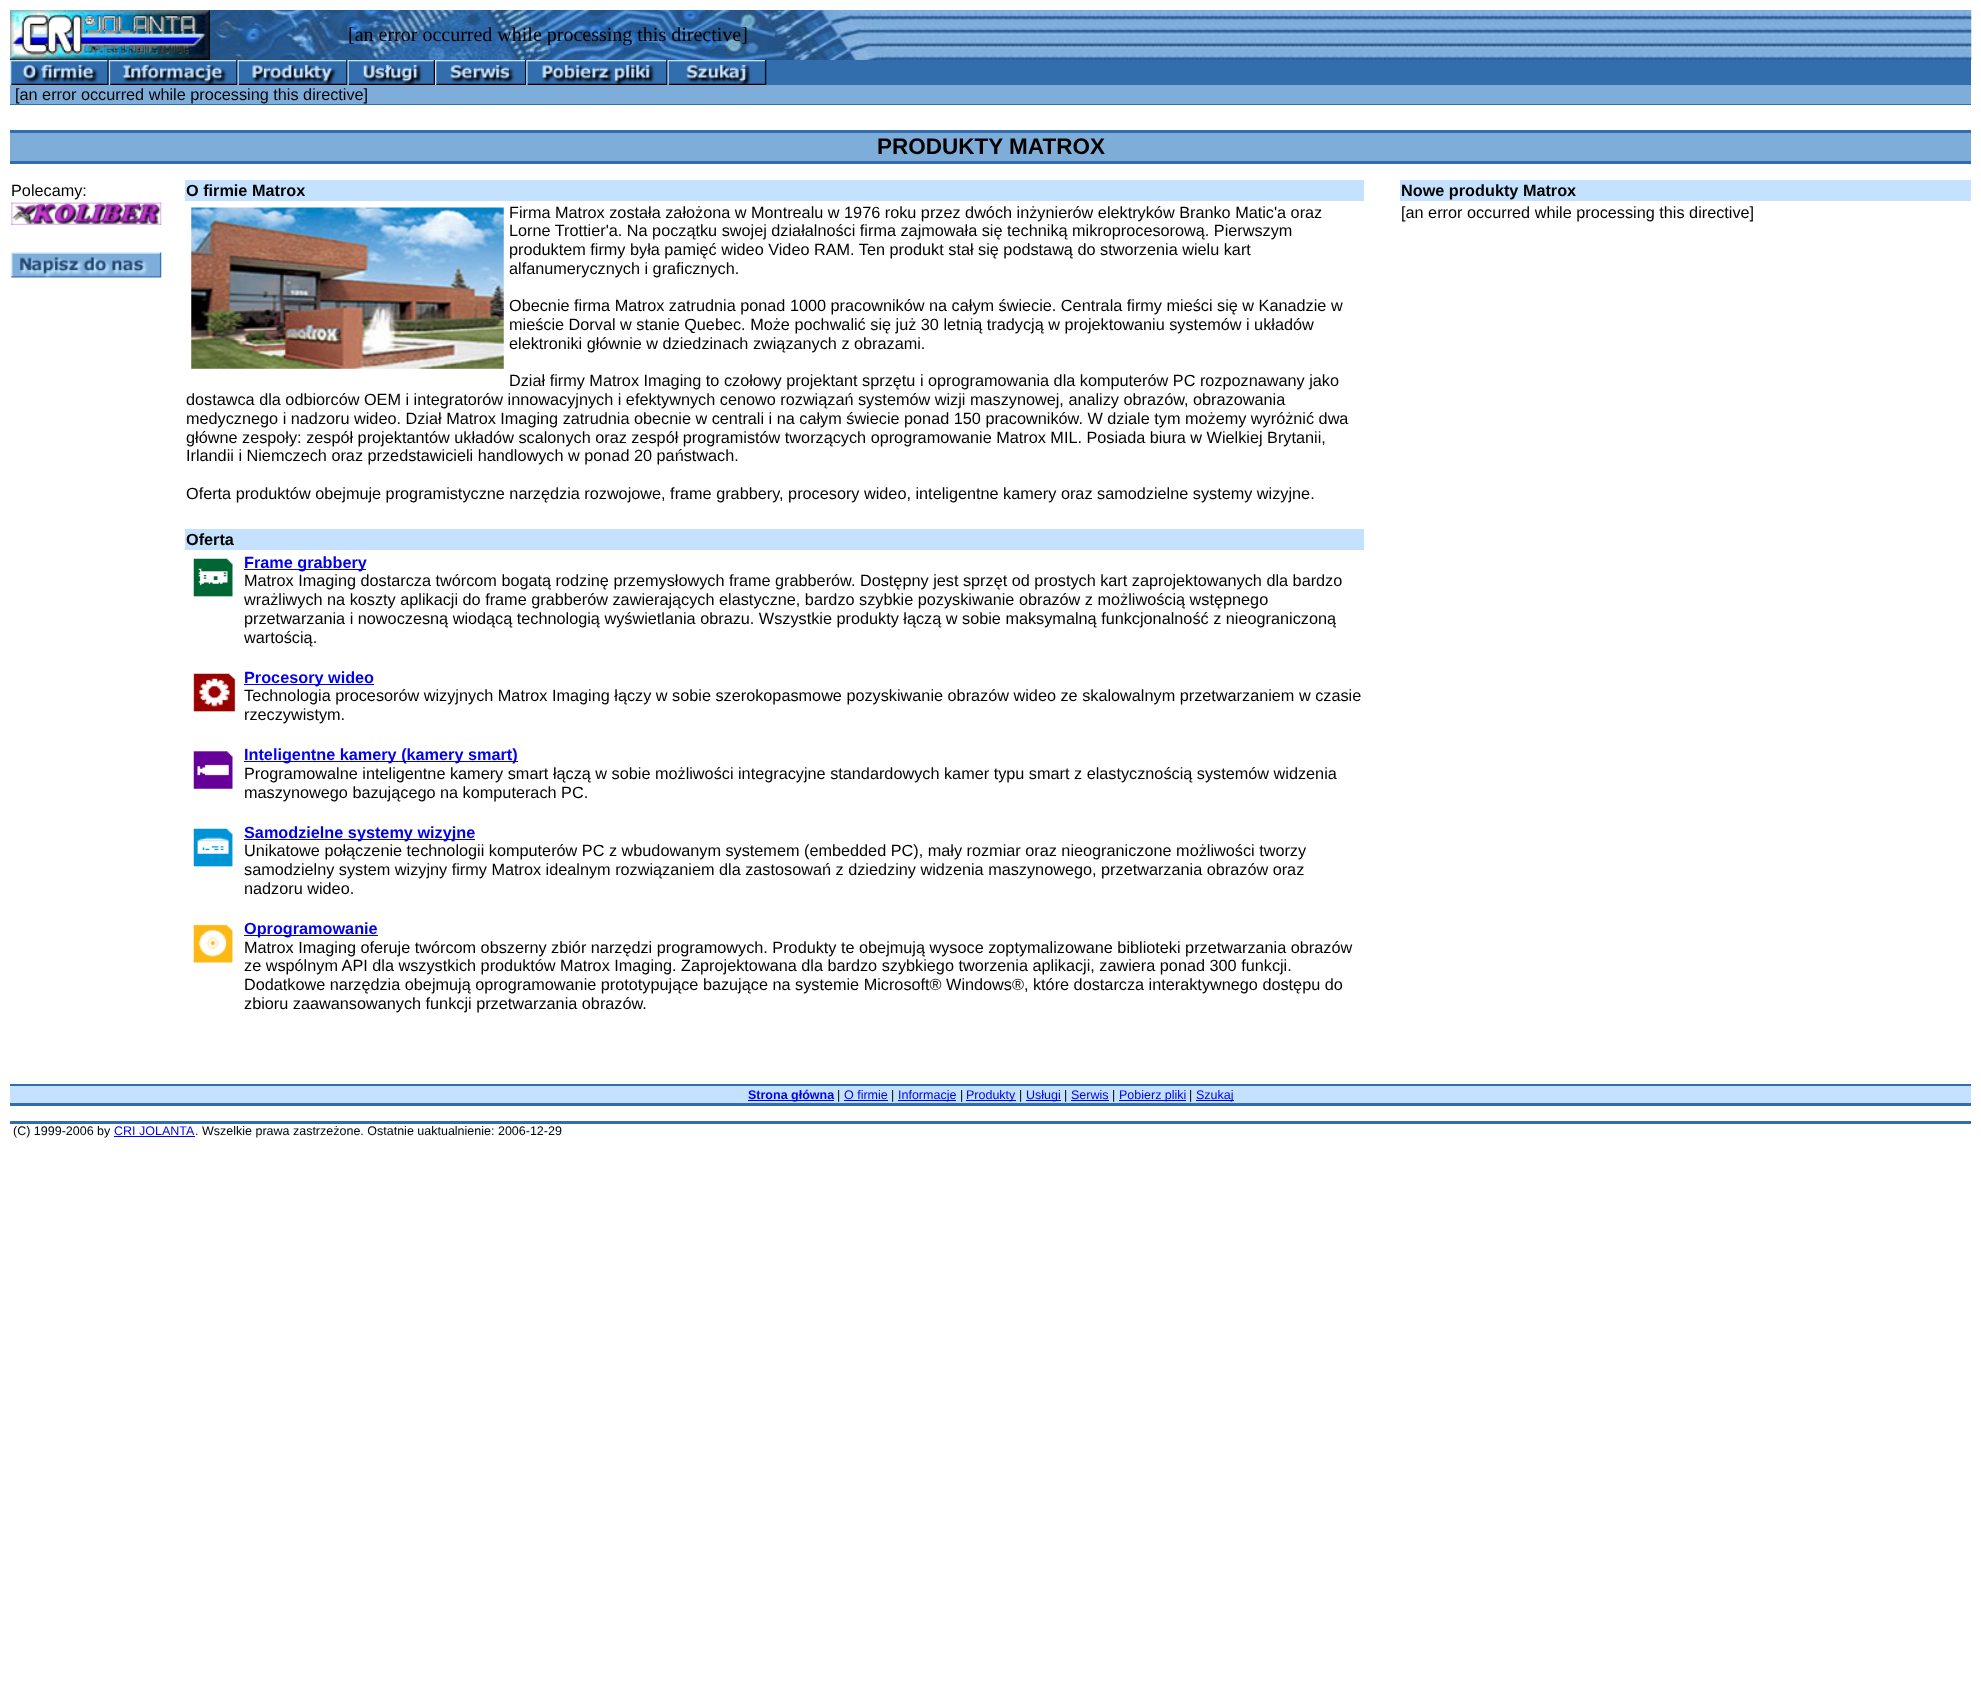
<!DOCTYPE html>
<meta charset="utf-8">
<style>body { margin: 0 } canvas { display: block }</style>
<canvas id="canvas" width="1981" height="1701"></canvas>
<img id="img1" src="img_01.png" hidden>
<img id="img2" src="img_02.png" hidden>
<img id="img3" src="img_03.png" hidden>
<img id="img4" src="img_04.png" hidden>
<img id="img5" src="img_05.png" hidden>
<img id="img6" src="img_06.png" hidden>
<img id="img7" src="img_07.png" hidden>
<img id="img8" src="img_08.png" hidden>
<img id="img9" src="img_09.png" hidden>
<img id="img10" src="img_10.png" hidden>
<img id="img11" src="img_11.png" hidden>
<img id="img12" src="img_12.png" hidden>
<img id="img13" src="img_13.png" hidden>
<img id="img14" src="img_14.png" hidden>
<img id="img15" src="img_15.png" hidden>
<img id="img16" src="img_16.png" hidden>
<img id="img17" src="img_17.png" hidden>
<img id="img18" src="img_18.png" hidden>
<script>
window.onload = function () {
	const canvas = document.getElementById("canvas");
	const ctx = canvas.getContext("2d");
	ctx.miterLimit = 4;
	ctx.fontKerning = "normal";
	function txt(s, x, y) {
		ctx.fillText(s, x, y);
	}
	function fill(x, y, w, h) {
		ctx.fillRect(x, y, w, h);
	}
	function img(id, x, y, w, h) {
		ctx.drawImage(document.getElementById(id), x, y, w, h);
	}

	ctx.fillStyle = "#FFFFFF";
	fill(0, 0, 1981, 1701);
	img("img1", 10, 10, 200, 50);
	img("img2", 210, 10, 675, 50);
	img("img3", 885, 10, 1087, 50);
	ctx.fillStyle = "#326DAE";
	fill(108, 60, 1863, 25);
	img("img4", 10, 60, 99, 25);
	img("img5", 108, 60, 130, 25);
	img("img6", 237, 60, 111, 25);
	img("img7", 347, 60, 88, 25);
	img("img8", 435, 60, 92, 25);
	img("img9", 526, 60, 142, 25);
	img("img10", 667, 60, 100, 25);
	ctx.fillStyle = "#7EADD9";
	fill(10, 85, 1961, 19);
	ctx.fillStyle = "#326DAE";
	fill(10, 104, 1961, 1);
	fill(10, 130, 1961, 3);
	ctx.fillStyle = "#7EADD9";
	fill(10, 133, 1961, 28);
	ctx.fillStyle = "#326DAE";
	fill(10, 161, 1961, 3);
	img("img11", 11, 202, 151, 23);
	img("img12", 11, 252, 151, 26);
	ctx.fillStyle = "#C4E1FF";
	fill(185, 180, 1179, 21);
	img("img13", 191, 207, 313, 162);
	fill(185, 529, 1179, 21);
	img("img14", 193, 558, 40, 39);
	ctx.fillStyle = "#0000EE";
	fill(244, 569, 122, 1);
	img("img15", 193, 673, 43, 39);
	fill(244, 684, 130, 1);
	img("img16", 193, 751, 40, 38);
	fill(244, 761, 274, 1);
	img("img17", 193, 828, 40, 39);
	fill(244, 839, 231, 1);
	img("img18", 193, 924, 40, 39);
	fill(244, 935, 134, 1);
	ctx.fillStyle = "#C4E1FF";
	fill(1400, 180, 571, 21);
	ctx.fillStyle = "#326DAE";
	fill(10, 1084, 1961, 2);
	ctx.fillStyle = "#C4E1FF";
	fill(10, 1086, 1961, 17);
	ctx.fillStyle = "#0000EE";
	fill(748, 1100, 86, 1);
	fill(844, 1100, 44, 1);
	fill(898, 1100, 58, 1);
	fill(966, 1100, 50, 1);
	fill(1026, 1100, 35, 1);
	fill(1071, 1100, 38, 1);
	fill(1119, 1100, 67, 1);
	fill(1196, 1100, 38, 1);
	ctx.fillStyle = "#326DAE";
	fill(10, 1103, 1961, 3);
	fill(10, 1121, 1961, 3);
	ctx.fillStyle = "#0000EE";
	fill(114, 1136, 81, 1);
	ctx.font = "20px Liberation Serif";
	ctx.fillStyle = "#000000";
	txt("[an error occurred while processing this directive]", 348, 41);
	ctx.font = "16.25px Liberation Sans";
	txt("[an error occurred while processing this directive]", 15, 100);
	ctx.font = "bold 22.5px Liberation Sans";
	txt("PRODUKTY MATROX", 877, 154);
	ctx.font = "16.25px Liberation Sans";
	txt("Polecamy:", 11, 196);
	ctx.font = "bold 16.25px Liberation Sans";
	txt("O firmie Matrox", 186, 196);
	ctx.font = "16.25px Liberation Sans";
	txt("Firma Matrox została założona w Montrealu w 1976 roku przez dwóch inżynierów elektryków Branko Matic'a oraz", 509, 218);
	txt("Lorne Trottier'a. Na początku swojej działalności firma zajmowała się techniką mikroprocesorową. Pierwszym", 509, 236);
	txt("produktem firmy była pamięć wideo Video RAM. Ten produkt stał się podstawą do stworzenia wielu kart", 509, 255);
	txt("alfanumerycznych i graficznych.", 509, 274);
	txt("Obecnie firma Matrox zatrudnia ponad 1000 pracowników na całym świecie. Centrala firmy mieści się w Kanadzie w", 509, 311);
	txt("mieście Dorval w stanie Quebec. Może pochwalić się już 30 letnią tradycją w projektowaniu systemów i układów", 509, 330);
	txt("elektroniki głównie w dziedzinach związanych z obrazami.", 509, 349);
	txt("Dział firmy Matrox Imaging to czołowy projektant sprzętu i oprogramowania dla komputerów PC rozpoznawany jako", 509, 386);
	txt("dostawca dla odbiorców OEM i integratorów innowacyjnych i efektywnych cenowo rozwiązań systemów wizji maszynowej, analizy obrazów, obrazowania", 186, 405);
	txt("medycznego i nadzoru wideo. Dział Matrox Imaging zatrudnia obecnie w centrali i na całym świecie ponad 150 pracowników. W dziale tym możemy wyróżnić dwa", 186, 424);
	txt("główne zespoły: zespół projektantów układów scalonych oraz zespół programistów tworzących oprogramowanie Matrox MIL. Posiada biura w Wielkiej Brytanii,", 186, 443);
	txt("Irlandii i Niemczech oraz przedstawicieli handlowych w ponad 20 państwach.", 186, 461);
	txt("Oferta produktów obejmuje programistyczne narzędzia rozwojowe, frame grabbery, procesory wideo, inteligentne kamery oraz samodzielne systemy wizyjne.", 186, 499);
	ctx.font = "bold 16.25px Liberation Sans";
	txt("Oferta", 186, 545);
	ctx.fillStyle = "#0000EE";
	txt("Frame grabbery", 244, 568);
	ctx.font = "16.25px Liberation Sans";
	ctx.fillStyle = "#000000";
	txt("Matrox Imaging dostarcza twórcom bogatą rodzinę przemysłowych frame grabberów. Dostępny jest sprzęt od prostych kart zaprojektowanych dla bardzo", 244, 586);
	txt("wrażliwych na koszty aplikacji do frame grabberów zawierających elastyczne, bardzo szybkie pozyskiwanie obrazów z możliwością wstępnego", 244, 605);
	txt("przetwarzania i nowoczesną wiodącą technologią wyświetlania obrazu. Wszystkie produkty łączą w sobie maksymalną funkcjonalność z nieograniczoną", 244, 624);
	txt("wartością.", 244, 643);
	ctx.font = "bold 16.25px Liberation Sans";
	ctx.fillStyle = "#0000EE";
	txt("Procesory wideo", 244, 683);
	ctx.font = "16.25px Liberation Sans";
	ctx.fillStyle = "#000000";
	txt("Technologia procesorów wizyjnych Matrox Imaging łączy w sobie szerokopasmowe pozyskiwanie obrazów wideo ze skalowalnym przetwarzaniem w czasie", 244, 701);
	txt("rzeczywistym.", 244, 720);
	ctx.font = "bold 16.25px Liberation Sans";
	ctx.fillStyle = "#0000EE";
	txt("Inteligentne kamery (kamery smart)", 244, 760);
	ctx.font = "16.25px Liberation Sans";
	ctx.fillStyle = "#000000";
	txt("Programowalne inteligentne kamery smart łączą w sobie możliwości integracyjne standardowych kamer typu smart z elastycznością systemów widzenia", 244, 779);
	txt("maszynowego bazującego na komputerach PC.", 244, 798);
	ctx.font = "bold 16.25px Liberation Sans";
	ctx.fillStyle = "#0000EE";
	txt("Samodzielne systemy wizyjne", 244, 838);
	ctx.font = "16.25px Liberation Sans";
	ctx.fillStyle = "#000000";
	txt("Unikatowe połączenie technologii komputerów PC z wbudowanym systemem (embedded PC), mały rozmiar oraz nieograniczone możliwości tworzy", 244, 856);
	txt("samodzielny system wizyjny firmy Matrox idealnym rozwiązaniem dla zastosowań z dziedziny widzenia maszynowego, przetwarzania obrazów oraz", 244, 875);
	txt("nadzoru wideo.", 244, 894);
	ctx.font = "bold 16.25px Liberation Sans";
	ctx.fillStyle = "#0000EE";
	txt("Oprogramowanie", 244, 934);
	ctx.font = "16.25px Liberation Sans";
	ctx.fillStyle = "#000000";
	txt("Matrox Imaging oferuje twórcom obszerny zbiór narzędzi programowych. Produkty te obejmują wysoce zoptymalizowane biblioteki przetwarzania obrazów", 244, 953);
	txt("ze wspólnym API dla wszystkich produktów Matrox Imaging. Zaprojektowana dla bardzo szybkiego tworzenia aplikacji, zawiera ponad 300 funkcji.", 244, 971);
	txt("Dodatkowe narzędzia obejmują oprogramowanie prototypujące bazujące na systemie Microsoft® Windows®, które dostarcza interaktywnego dostępu do", 244, 990);
	txt("zbioru zaawansowanych funkcji przetwarzania obrazów.", 244, 1009);
	ctx.font = "bold 16.25px Liberation Sans";
	txt("Nowe produkty Matrox", 1401, 196);
	ctx.font = "16.25px Liberation Sans";
	txt("[an error occurred while processing this directive]", 1401, 218);
	ctx.font = "bold 12.5px Liberation Sans";
	ctx.fillStyle = "#0000EE";
	txt("Strona główna", 748, 1099);
	ctx.font = "12.5px Liberation Sans";
	ctx.fillStyle = "#000000";
	txt("|", 837, 1099);
	ctx.fillStyle = "#0000EE";
	txt("O firmie", 844, 1099);
	ctx.fillStyle = "#000000";
	txt("|", 891, 1099);
	ctx.fillStyle = "#0000EE";
	txt("Informacje", 898, 1099);
	ctx.fillStyle = "#000000";
	txt("|", 960, 1099);
	ctx.fillStyle = "#0000EE";
	txt("Produkty", 966, 1099);
	ctx.fillStyle = "#000000";
	txt("|", 1019, 1099);
	ctx.fillStyle = "#0000EE";
	txt("Usługi", 1026, 1099);
	ctx.fillStyle = "#000000";
	txt("|", 1064, 1099);
	ctx.fillStyle = "#0000EE";
	txt("Serwis", 1071, 1099);
	ctx.fillStyle = "#000000";
	txt("|", 1112, 1099);
	ctx.fillStyle = "#0000EE";
	txt("Pobierz pliki", 1119, 1099);
	ctx.fillStyle = "#000000";
	txt("|", 1189, 1099);
	ctx.fillStyle = "#0000EE";
	txt("Szukaj", 1196, 1099);
	ctx.fillStyle = "#000000";
	txt("(C) 1999-2006 by", 13, 1135);
	ctx.fillStyle = "#0000EE";
	txt("CRI JOLANTA", 114, 1135);
	ctx.fillStyle = "#000000";
	txt(". Wszelkie prawa zastrzeżone. Ostatnie uaktualnienie: 2006-12-29", 195, 1135);
};
</script>
